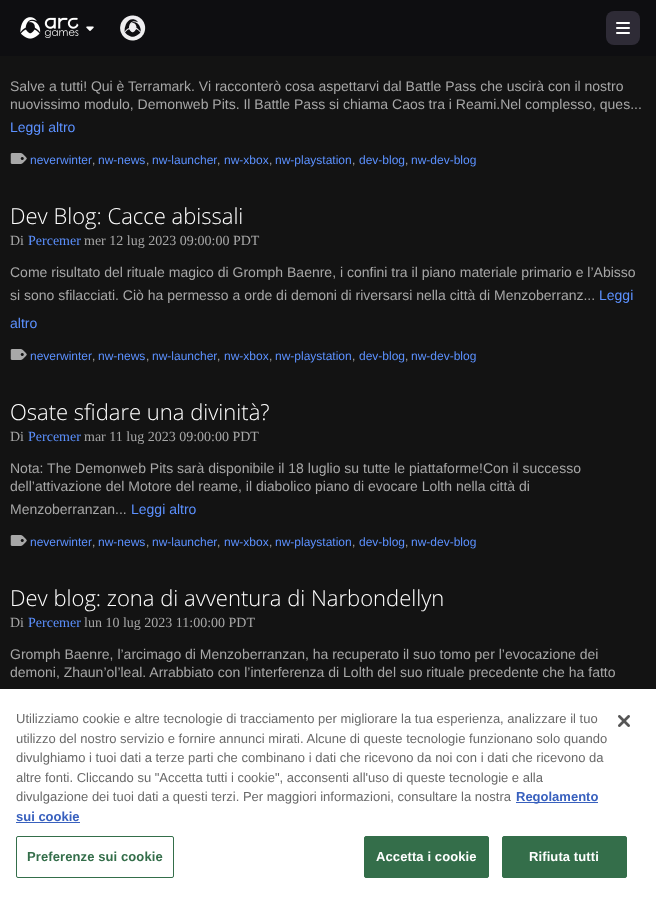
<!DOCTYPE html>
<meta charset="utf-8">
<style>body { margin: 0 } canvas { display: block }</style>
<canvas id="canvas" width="656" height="898"></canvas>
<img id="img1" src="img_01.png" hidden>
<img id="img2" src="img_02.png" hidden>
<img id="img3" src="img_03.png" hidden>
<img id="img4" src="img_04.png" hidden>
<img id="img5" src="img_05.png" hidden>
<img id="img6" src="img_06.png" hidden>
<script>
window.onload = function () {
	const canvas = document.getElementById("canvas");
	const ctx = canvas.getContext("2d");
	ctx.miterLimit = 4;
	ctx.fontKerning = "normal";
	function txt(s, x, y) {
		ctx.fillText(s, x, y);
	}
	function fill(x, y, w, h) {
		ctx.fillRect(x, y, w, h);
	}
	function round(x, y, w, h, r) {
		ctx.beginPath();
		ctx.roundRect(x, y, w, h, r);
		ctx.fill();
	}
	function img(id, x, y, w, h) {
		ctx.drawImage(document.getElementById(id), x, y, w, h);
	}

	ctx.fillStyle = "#131313";
	fill(0, 0, 656, 898);
	ctx.fillStyle = "#0E0E11";
	fill(0, 0, 656, 56);
	img("img1", 20, 17, 59, 22);
	img("img2", 86, 26, 8, 5);
	img("img3", 120, 15, 26, 26);
	ctx.fillStyle = "#2E2B36";
	round(606, 11, 34, 34, 8);
	img("img4", 616, 22, 14, 12);
	img("img5", 10, 153, 17, 11);
	img("img5", 10, 349, 17, 11);
	img("img5", 10, 535, 17, 11);
	ctx.fillStyle = "#FFFFFF";
	fill(0, 689, 656, 209);
	ctx.fillStyle = "#3860BE";
	fill(516, 802, 82, 1);
	fill(16, 822, 64, 1);
	ctx.beginPath();
	ctx.roundRect(16.5, 836.5, 157, 41, 1.5);
	ctx.strokeStyle = "#346E4A";
	ctx.stroke();
	ctx.fillStyle = "#346E4A";
	ctx.beginPath();
	ctx.roundRect(364.5, 836.5, 124, 41, 1.5);
	ctx.fill();
	ctx.stroke();
	ctx.beginPath();
	ctx.roundRect(502.5, 836.5, 124, 41, 1.5);
	ctx.fill();
	ctx.stroke();
	img("img6", 618, 715, 12, 12);
	ctx.font = "14px Liberation Sans";
	ctx.fillStyle = "#A7A7A7";
	txt("Salve a tutti! Qui è Terramark. Vi racconterò cosa aspettarvi dal Battle Pass che uscirà con il nostro", 10, 91);
	txt("nuovissimo modulo, Demonweb Pits. Il Battle Pass si chiama Caos tra i Reami.Nel complesso, ques...", 10, 109);
	ctx.fillStyle = "#5C91FF";
	txt("Leggi altro", 10, 132);
	ctx.font = "12px Liberation Sans";
	txt("neverwinter", 30, 164);
	txt("nw-news", 98, 164);
	txt("nw-launcher", 152, 164);
	txt("nw-xbox", 224, 164);
	txt("nw-playstation", 275, 164);
	txt("dev-blog", 359, 164);
	txt("nw-dev-blog", 411, 164);
	ctx.fillStyle = "#A7A7A7";
	txt(",", 92, 164);
	txt(",", 146, 164);
	txt(",", 217, 164);
	txt(",", 269, 164);
	txt(",", 352, 164);
	txt(",", 405, 164);
	ctx.font = "300 22px Open Sans";
	ctx.fillStyle = "#FFFFFF";
	txt("Dev Blog: Cacce abissali", 10, 224);
	ctx.font = "14px Liberation Serif";
	ctx.fillStyle = "#A7A7A7";
	txt("Di", 10, 245);
	ctx.fillStyle = "#5C91FF";
	txt("Percemer", 28, 245);
	ctx.fillStyle = "#A7A7A7";
	txt("mer 12 lug 2023 09:00:00 PDT", 84, 245);
	ctx.font = "14px Liberation Sans";
	txt("Come risultato del rituale magico di Gromph Baenre, i confini tra il piano materiale primario e l’Abisso", 10, 277);
	txt("si sono sfilacciati. Ciò ha permesso a orde di demoni di riversarsi nella città di Menzoberranz...", 10, 300);
	ctx.fillStyle = "#5C91FF";
	txt("Leggi", 599, 300);
	txt("altro", 10, 328);
	ctx.font = "12px Liberation Sans";
	txt("neverwinter", 30, 360);
	txt("nw-news", 98, 360);
	txt("nw-launcher", 152, 360);
	txt("nw-xbox", 224, 360);
	txt("nw-playstation", 275, 360);
	txt("dev-blog", 359, 360);
	txt("nw-dev-blog", 411, 360);
	ctx.fillStyle = "#A7A7A7";
	txt(",", 92, 360);
	txt(",", 146, 360);
	txt(",", 217, 360);
	txt(",", 269, 360);
	txt(",", 352, 360);
	txt(",", 405, 360);
	ctx.font = "300 22px Open Sans";
	ctx.fillStyle = "#FFFFFF";
	txt("Osate sfidare una divinità?", 10, 420);
	ctx.font = "14px Liberation Serif";
	ctx.fillStyle = "#A7A7A7";
	txt("Di", 10, 441);
	ctx.fillStyle = "#5C91FF";
	txt("Percemer", 28, 441);
	ctx.fillStyle = "#A7A7A7";
	txt("mar 11 lug 2023 09:00:00 PDT", 84, 441);
	ctx.font = "14px Liberation Sans";
	txt("Nota: The Demonweb Pits sarà disponibile il 18 luglio su tutte le piattaforme!Con il successo", 10, 473);
	txt("dell’attivazione del Motore del reame, il diabolico piano di evocare Lolth nella città di", 10, 491);
	txt("Menzoberranzan...", 10, 514);
	ctx.fillStyle = "#5C91FF";
	txt("Leggi altro", 131, 514);
	ctx.font = "12px Liberation Sans";
	txt("neverwinter", 30, 546);
	txt("nw-news", 98, 546);
	txt("nw-launcher", 152, 546);
	txt("nw-xbox", 224, 546);
	txt("nw-playstation", 275, 546);
	txt("dev-blog", 359, 546);
	txt("nw-dev-blog", 411, 546);
	ctx.fillStyle = "#A7A7A7";
	txt(",", 92, 546);
	txt(",", 146, 546);
	txt(",", 217, 546);
	txt(",", 269, 546);
	txt(",", 352, 546);
	txt(",", 405, 546);
	ctx.font = "300 22px Open Sans";
	ctx.fillStyle = "#FFFFFF";
	txt("Dev blog: zona di avventura di Narbondellyn", 10, 606);
	ctx.font = "14px Liberation Serif";
	ctx.fillStyle = "#A7A7A7";
	txt("Di", 10, 627);
	ctx.fillStyle = "#5C91FF";
	txt("Percemer", 28, 627);
	ctx.fillStyle = "#A7A7A7";
	txt("lun 10 lug 2023 11:00:00 PDT", 84, 627);
	ctx.font = "14px Liberation Sans";
	txt("Gromph Baenre, l’arcimago di Menzoberranzan, ha recuperato il suo tomo per l’evocazione dei", 10, 659);
	txt("demoni, Zhaun’ol’leal. Arrabbiato con l’interferenza di Lolth del suo rituale precedente che ha fatto", 10, 677);
	ctx.font = "13px Liberation Sans";
	ctx.fillStyle = "#696969";
	txt("Utilizziamo cookie e altre tecnologie di tracciamento per migliorare la tua esperienza, analizzare il tuo", 16, 723);
	txt("utilizzo del nostro servizio e fornire annunci mirati. Alcune di queste tecnologie funzionano solo quando", 16, 743);
	txt("divulghiamo i tuoi dati a terze parti che combinano i dati che ricevono da noi con i dati che ricevono da", 16, 762);
	txt("altre fonti. Cliccando su \"Accetta tutti i cookie\", acconsenti all'uso di queste tecnologie e alla", 16, 782);
	txt("divulgazione dei tuoi dati a questi terzi. Per maggiori informazioni, consultare la nostra", 16, 801);
	ctx.font = "bold 13px Liberation Sans";
	ctx.fillStyle = "#3860BE";
	txt("Regolamento", 516, 801);
	txt("sui cookie", 16, 821);
	ctx.letterSpacing = "0.1px";
	ctx.fillStyle = "#346E4A";
	txt("Preferenze sui cookie", 27, 861);
	ctx.fillStyle = "#FFFFFF";
	txt("Accetta i cookie", 376, 861);
	txt("Rifiuta tutti", 529, 861);
};
</script>
